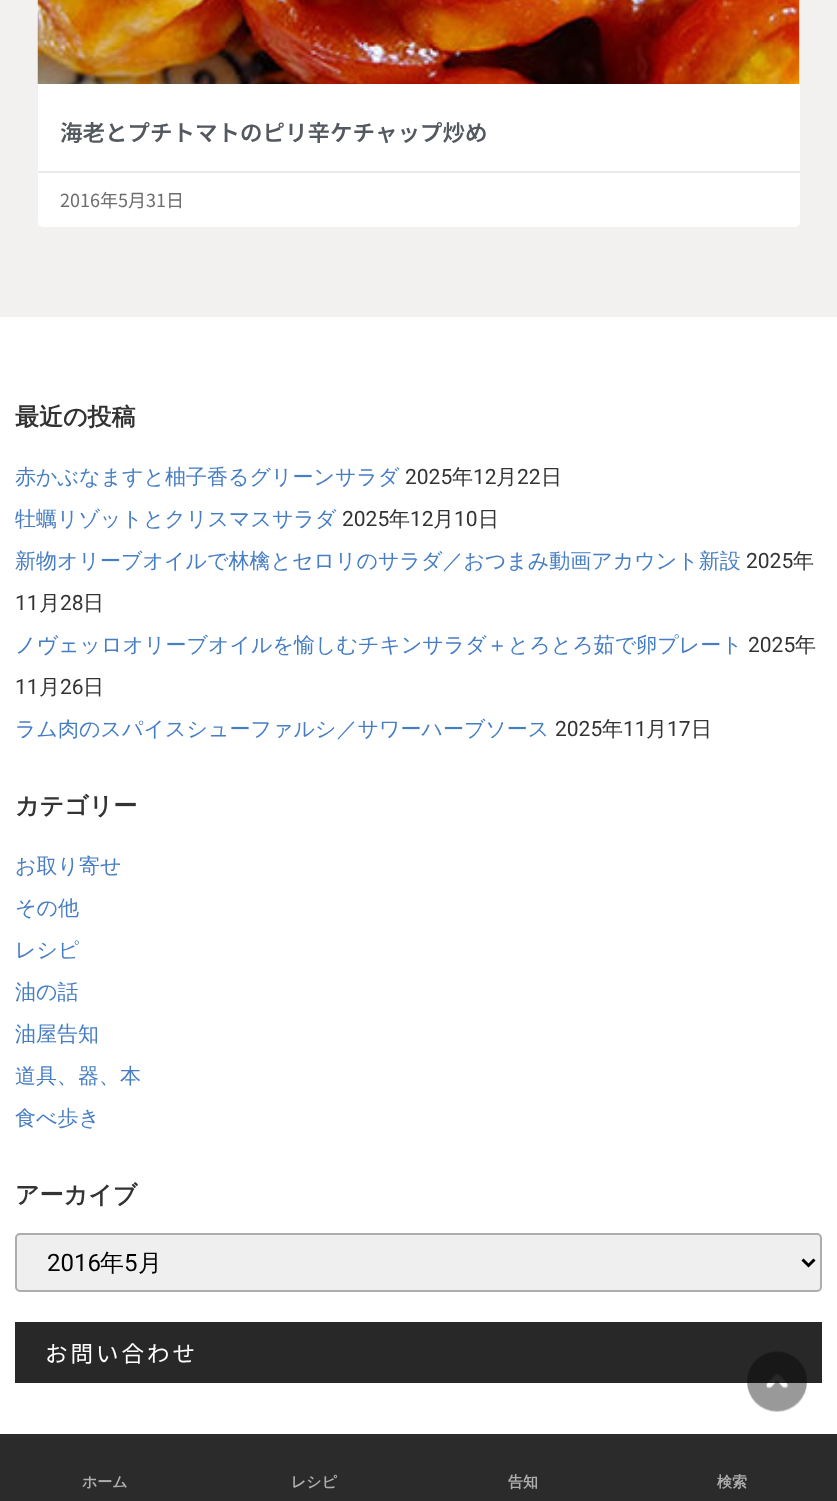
<!DOCTYPE html>
<meta charset="utf-8">
<style>body { margin: 0 } canvas { display: block }</style>
<canvas id="canvas" width="837" height="1501"></canvas>
<img id="img1" src="img_01.png" hidden>
<img id="img2" src="img_02.png" hidden>
<script>
window.onload = function () {
	const canvas = document.getElementById("canvas");
	const ctx = canvas.getContext("2d");
	ctx.miterLimit = 4;
	ctx.fontKerning = "normal";
	function txt(s, x, y) {
		ctx.fillText(s, x, y);
	}
	function fill(x, y, w, h) {
		ctx.fillRect(x, y, w, h);
	}
	function round(x, y, w, h, r) {
		ctx.beginPath();
		ctx.roundRect(x, y, w, h, r);
		ctx.fill();
	}
	function img(id, x, y, w, h) {
		ctx.drawImage(document.getElementById(id), x, y, w, h);
	}

	ctx.fillStyle = "#FFFFFF";
	fill(0, 0, 837, 1501);
	ctx.fillStyle = "#F2F1EF";
	fill(0, 0, 837, 317);
	ctx.fillStyle = "#FFFFFF";
	round(38, -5, 762, 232, 5);
	img("img1", 37, 0, 763, 84);
	ctx.fillStyle = "#EAEAEA";
	fill(38, 171, 762, 2);
	ctx.fillStyle = "#EFEFEF";
	ctx.beginPath();
	ctx.roundRect(16, 1234, 805, 57, 4);
	ctx.fill();
	ctx.strokeStyle = "#ADADAD";
	ctx.lineWidth = 2;
	ctx.stroke();
	ctx.beginPath();
	ctx.moveTo(802.5, 1259.5);
	ctx.lineTo(808.5, 1265.5);
	ctx.lineTo(814.5, 1259.5);
	ctx.strokeStyle = "#000000";
	ctx.lineWidth = 3;
	ctx.stroke();
	ctx.fillStyle = "#282828";
	fill(15, 1322, 807, 61);
	ctx.fillStyle = "#2B2B2B";
	fill(0, 1434, 837, 67);
	img("img2", 747, 1351, 60, 61);
	ctx.font = "600 22.5px Noto Sans JP";
	ctx.fillStyle = "#54595F";
	txt("海老とプチトマトのピリ辛ケチャップ炒め", 60, 141);
	ctx.font = "18px Noto Sans JP";
	ctx.fillStyle = "#6D6D6D";
	txt("2016年5月31日", 60, 207);
	ctx.font = "bold 24px WenQuanYi Zen Hei";
	ctx.fillStyle = "#333333";
	txt("最近の投稿", 15, 425);
	ctx.font = "500 21px WenQuanYi Zen Hei";
	ctx.fillStyle = "#477EC3";
	txt("赤かぶなますと柚子香るグリーンサラダ", 15, 484);
	ctx.font = "21px Roboto";
	ctx.fillStyle = "#333333";
	txt("2025", 405, 484);
	ctx.font = "500 21px WenQuanYi Zen Hei";
	txt("年", 452, 484);
	ctx.font = "21px Roboto";
	txt("12", 473, 484);
	ctx.font = "500 21px WenQuanYi Zen Hei";
	txt("月", 496, 484);
	ctx.font = "21px Roboto";
	txt("22", 517, 484);
	ctx.font = "500 21px WenQuanYi Zen Hei";
	txt("日", 541, 484);
	ctx.fillStyle = "#477EC3";
	txt("牡蠣リゾットとクリスマスサラダ", 15, 526);
	ctx.font = "21px Roboto";
	ctx.fillStyle = "#333333";
	txt("2025", 342, 526);
	ctx.font = "500 21px WenQuanYi Zen Hei";
	txt("年", 389, 526);
	ctx.font = "21px Roboto";
	txt("12", 410, 526);
	ctx.font = "500 21px WenQuanYi Zen Hei";
	txt("月", 433, 526);
	ctx.font = "21px Roboto";
	txt("10", 454, 526);
	ctx.font = "500 21px WenQuanYi Zen Hei";
	txt("日", 478, 526);
	ctx.fillStyle = "#477EC3";
	txt("新物オリーブオイルで林檎とセロリのサラダ／おつまみ動画アカウント新設", 15, 568);
	ctx.font = "21px Roboto";
	ctx.fillStyle = "#333333";
	txt("2025", 746, 568);
	ctx.font = "500 21px WenQuanYi Zen Hei";
	txt("年", 793, 568);
	ctx.font = "21px Roboto";
	txt("11", 15, 610);
	ctx.font = "500 21px WenQuanYi Zen Hei";
	txt("月", 39, 610);
	ctx.font = "21px Roboto";
	txt("28", 60, 610);
	ctx.font = "500 21px WenQuanYi Zen Hei";
	txt("日", 83, 610);
	ctx.fillStyle = "#477EC3";
	txt("ノヴェッロオリーブオイルを愉しむチキンサラダ＋とろとろ茹で卵プレート", 15, 652);
	ctx.font = "21px Roboto";
	ctx.fillStyle = "#333333";
	txt("2025", 748, 652);
	ctx.font = "500 21px WenQuanYi Zen Hei";
	txt("年", 795, 652);
	ctx.font = "21px Roboto";
	txt("11", 15, 694);
	ctx.font = "500 21px WenQuanYi Zen Hei";
	txt("月", 39, 694);
	ctx.font = "21px Roboto";
	txt("26", 60, 694);
	ctx.font = "500 21px WenQuanYi Zen Hei";
	txt("日", 83, 694);
	ctx.fillStyle = "#477EC3";
	txt("ラム肉のスパイスシューファルシ／サワーハーブソース", 15, 736);
	ctx.font = "21px Roboto";
	ctx.fillStyle = "#333333";
	txt("2025", 555, 736);
	ctx.font = "500 21px WenQuanYi Zen Hei";
	txt("年", 602, 736);
	ctx.font = "21px Roboto";
	txt("11", 623, 736);
	ctx.font = "500 21px WenQuanYi Zen Hei";
	txt("月", 646, 736);
	ctx.font = "21px Roboto";
	txt("17", 667, 736);
	ctx.font = "500 21px WenQuanYi Zen Hei";
	txt("日", 691, 736);
	ctx.font = "bold 24px WenQuanYi Zen Hei";
	txt("カテゴリー", 15, 814);
	ctx.font = "500 21px WenQuanYi Zen Hei";
	ctx.fillStyle = "#477EC3";
	txt("お取り寄せ", 15, 873);
	txt("その他", 15, 915);
	txt("レシピ", 15, 957);
	txt("油の話", 15, 999);
	txt("油屋告知", 15, 1041);
	txt("道具、器、本", 15, 1083);
	txt("食べ歩き", 15, 1125);
	ctx.font = "bold 24px WenQuanYi Zen Hei";
	ctx.fillStyle = "#333333";
	txt("アーカイブ", 15, 1203);
	ctx.font = "24px Roboto";
	ctx.fillStyle = "#000000";
	txt("2016", 47, 1271);
	ctx.font = "500 24px WenQuanYi Zen Hei";
	txt("年", 100, 1271);
	ctx.font = "24px Roboto";
	txt("5", 124, 1271);
	ctx.font = "500 24px WenQuanYi Zen Hei";
	txt("月", 138, 1271);
	ctx.letterSpacing = "3px";
	ctx.font = "22.5px Noto Sans JP";
	ctx.fillStyle = "#FFFFFF";
	txt("お問い合わせ", 45, 1362);
	ctx.letterSpacing = "0px";
	ctx.font = "bold 15px WenQuanYi Zen Hei";
	ctx.fillStyle = "#ADADAD";
	txt("ホーム", 82, 1487);
	txt("レシピ", 291, 1487);
	txt("告知", 508, 1487);
	txt("検索", 717, 1487);
};
</script>
